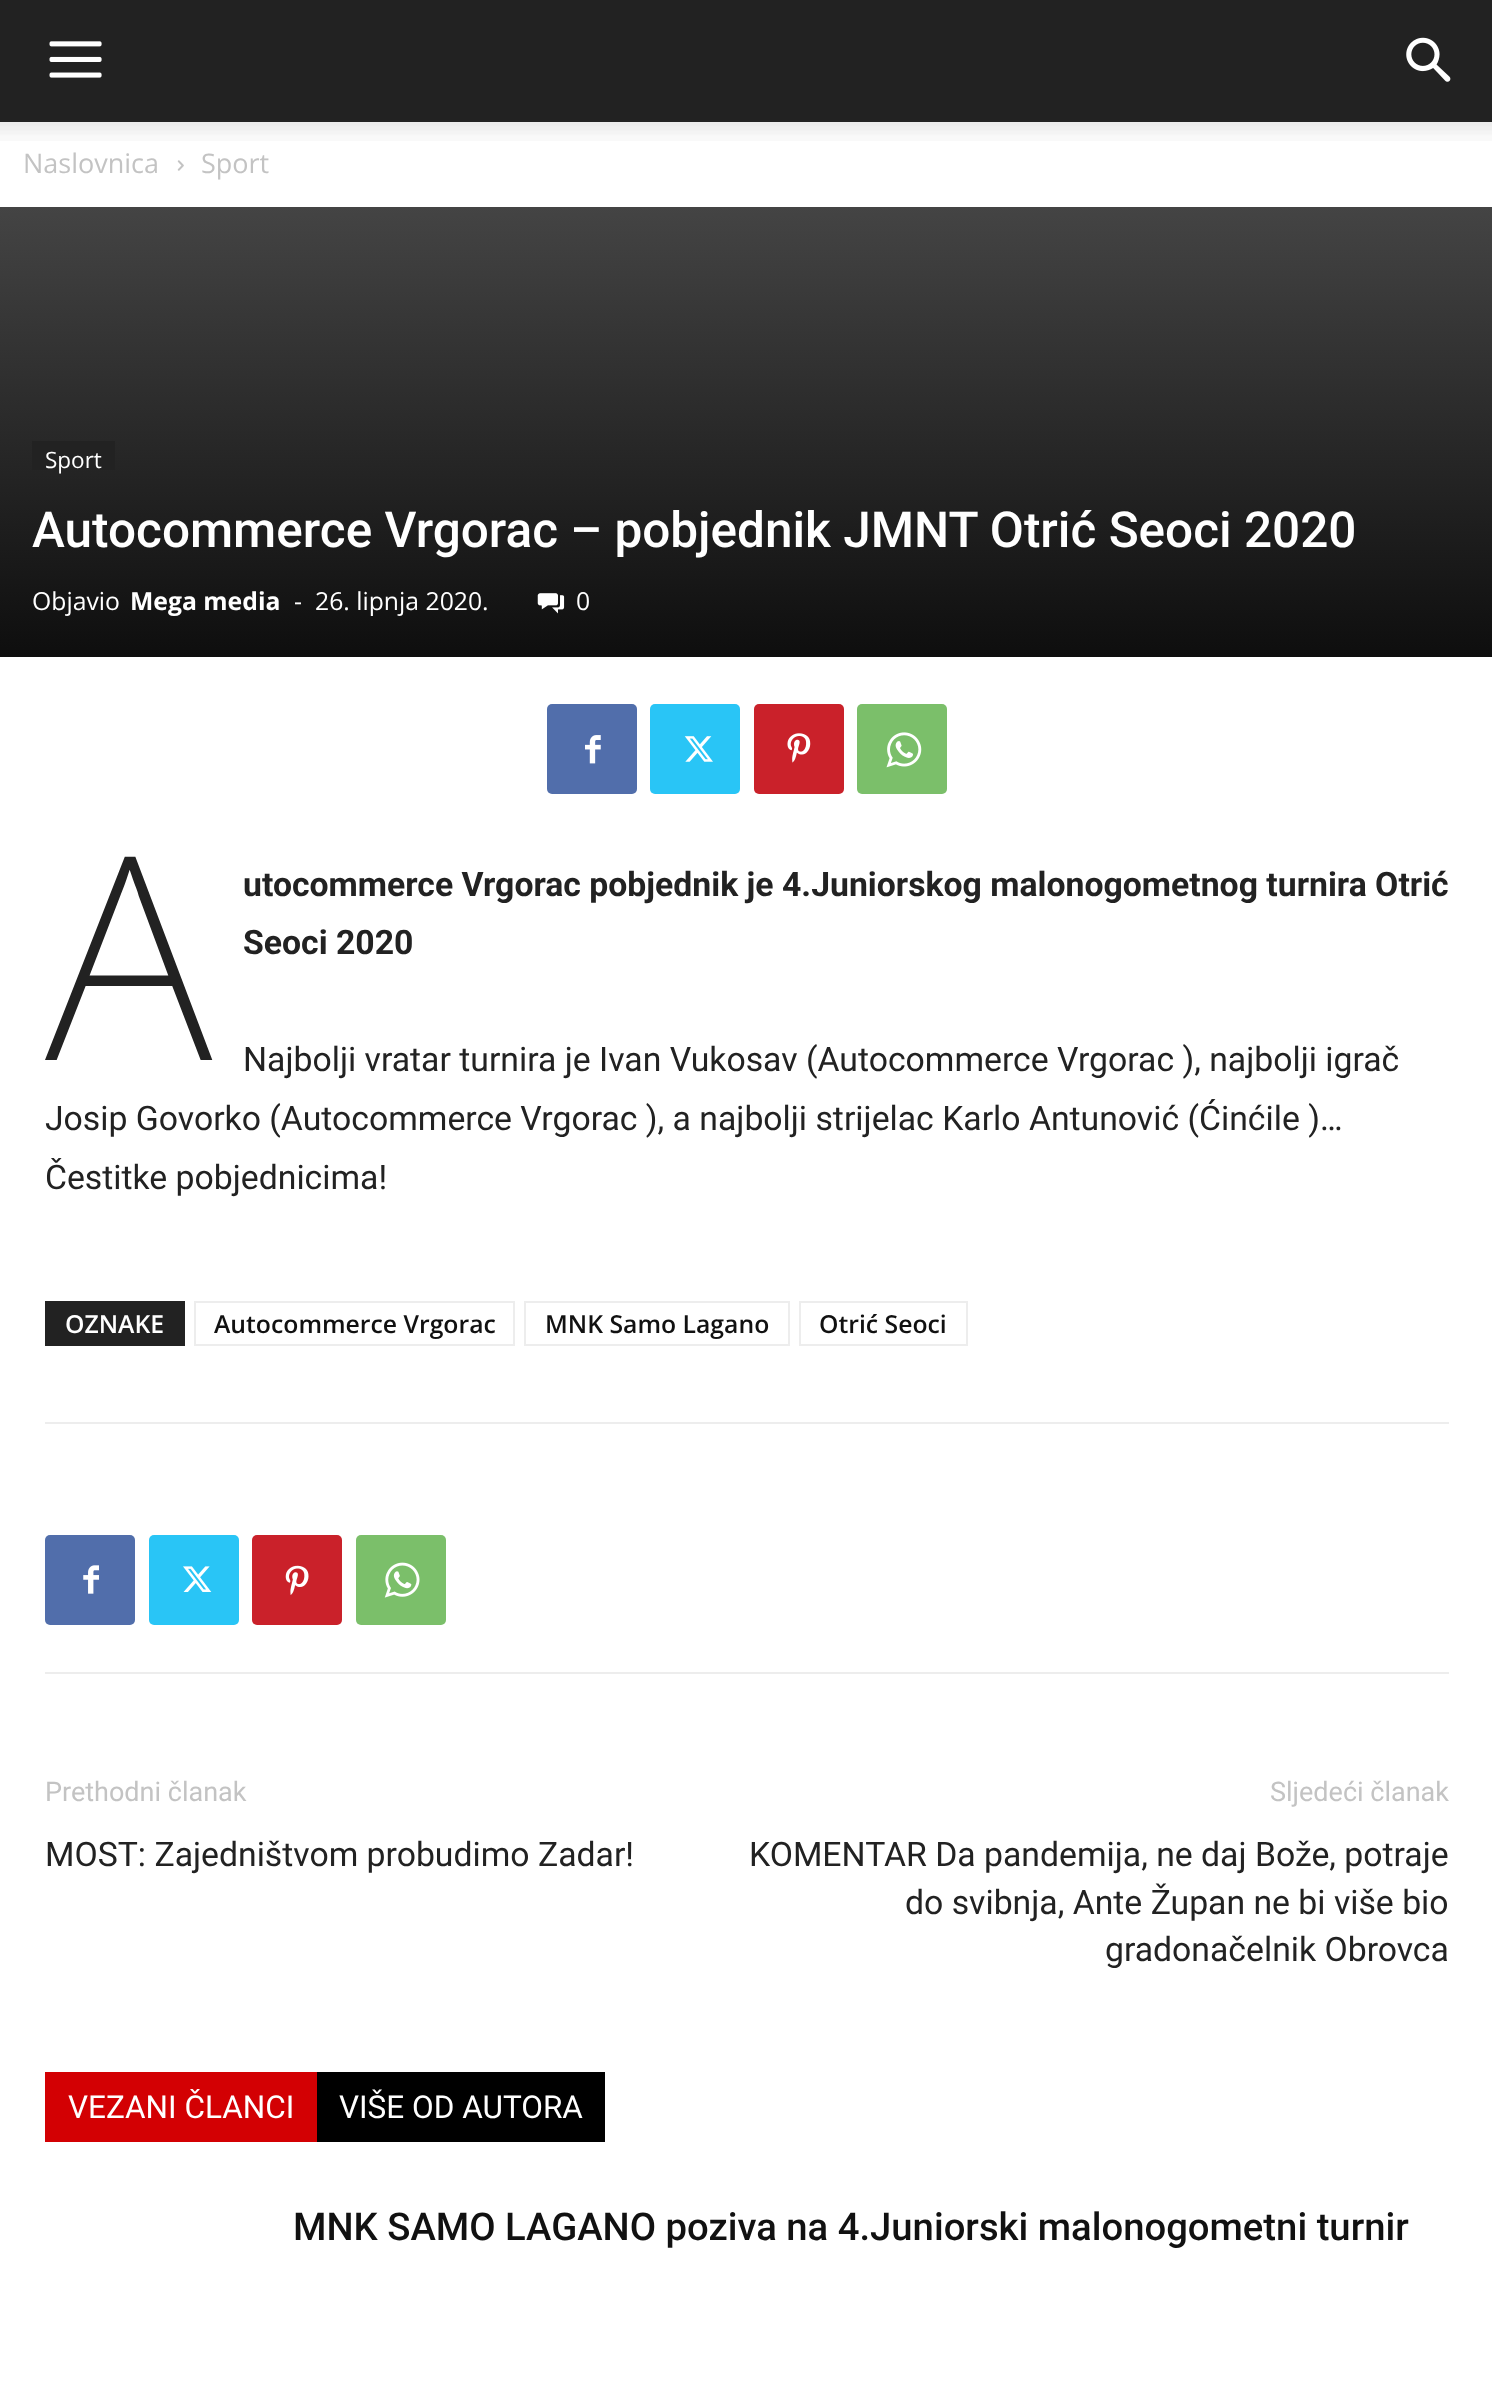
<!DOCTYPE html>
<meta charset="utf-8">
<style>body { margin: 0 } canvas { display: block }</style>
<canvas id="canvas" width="1492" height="2404"></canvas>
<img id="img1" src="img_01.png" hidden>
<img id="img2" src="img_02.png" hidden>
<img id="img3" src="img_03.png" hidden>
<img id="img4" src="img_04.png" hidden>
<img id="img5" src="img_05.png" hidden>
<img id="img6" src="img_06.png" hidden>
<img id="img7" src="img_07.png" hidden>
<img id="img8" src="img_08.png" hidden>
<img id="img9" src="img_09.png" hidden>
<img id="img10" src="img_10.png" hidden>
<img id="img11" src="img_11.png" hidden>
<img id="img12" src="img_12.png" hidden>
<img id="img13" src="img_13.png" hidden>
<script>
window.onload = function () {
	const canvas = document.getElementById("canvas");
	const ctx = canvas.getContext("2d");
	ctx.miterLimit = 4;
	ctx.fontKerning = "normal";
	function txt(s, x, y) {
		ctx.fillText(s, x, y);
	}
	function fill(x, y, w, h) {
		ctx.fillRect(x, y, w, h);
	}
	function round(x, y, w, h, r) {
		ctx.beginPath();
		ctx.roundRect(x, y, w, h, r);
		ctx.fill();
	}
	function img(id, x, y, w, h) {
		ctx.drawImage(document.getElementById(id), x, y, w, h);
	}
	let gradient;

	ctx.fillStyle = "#FFFFFF";
	fill(0, 0, 1492, 2404);
	ctx.fillStyle = "#222222";
	fill(0, 0, 1492, 122);
	img("img1", 49, 41, 53, 37);
	img("img2", 1406, 37, 45, 45);
	img("img3", 0, 122, 1492, 19);
	img("img4", 177, 160, 7, 11);
	gradient = ctx.createLinearGradient(747, 207, 747, 657);
	gradient.addColorStop(0, "#444444");
	gradient.addColorStop(1, "#0E0E0E");
	ctx.fillStyle = gradient;
	fill(0, 207, 1492, 450);
	ctx.fillStyle = "#222222";
	fill(32, 441, 83, 29);
	img("img5", 537, 593, 28, 21);
	ctx.fillStyle = "#516EAB";
	round(547, 704, 90, 90, 5);
	img("img6", 585, 735, 16, 29);
	ctx.fillStyle = "#29C5F6";
	round(650, 704, 90, 90, 5);
	img("img7", 684, 736, 29, 26);
	ctx.fillStyle = "#CA212A";
	round(754, 704, 90, 90, 5);
	img("img8", 787, 733, 24, 30);
	ctx.fillStyle = "#7BBF6A";
	round(857, 704, 90, 90, 5);
	img("img9", 886, 732, 36, 36);
	ctx.fillStyle = "#222222";
	fill(45, 1301, 140, 45);
	ctx.strokeStyle = "#EDEDED";
	ctx.lineWidth = 2;
	ctx.strokeRect(195, 1302, 319, 43);
	ctx.strokeRect(525, 1302, 264, 43);
	ctx.strokeRect(800, 1302, 167, 43);
	ctx.fillStyle = "#EDEDED";
	fill(45, 1422, 1404, 2);
	fill(45, 1672, 1404, 2);
	ctx.fillStyle = "#516EAB";
	round(45, 1535, 90, 90, 5);
	img("img10", 83, 1565, 16, 29);
	ctx.fillStyle = "#29C5F6";
	round(149, 1535, 90, 90, 5);
	img("img11", 183, 1566, 29, 26);
	ctx.fillStyle = "#CA212A";
	round(252, 1535, 90, 90, 5);
	img("img12", 285, 1565, 24, 30);
	ctx.fillStyle = "#7BBF6A";
	round(356, 1535, 90, 90, 5);
	img("img13", 384, 1562, 36, 36);
	ctx.fillStyle = "#D30003";
	fill(45, 2072, 272, 70);
	ctx.fillStyle = "#000000";
	fill(317, 2072, 288, 70);
	ctx.font = "27px Open Sans";
	ctx.fillStyle = "#C3C3C3";
	txt("Naslovnica", 23, 173);
	txt("Sport", 201, 173);
	ctx.font = "22.5px Open Sans";
	ctx.fillStyle = "#FFFFFF";
	txt("Sport", 45, 468);
	ctx.font = "500 49.5px Roboto";
	txt("Autocommerce Vrgorac – pobjednik JMNT Otrić Seoci 2020", 32, 547);
	ctx.font = "24.75px Open Sans";
	txt("Objavio", 32, 610);
	ctx.font = "bold 24.75px Open Sans";
	txt("Mega media", 130, 610);
	ctx.font = "24.75px Open Sans";
	txt("-", 294, 610);
	txt("26. lipnja 2020.", 315, 610);
	txt("0", 576, 610);
	ctx.font = "200 284px Noto Sans";
	ctx.fillStyle = "#222222";
	txt("A", 45, 1060);
	ctx.font = "bold 33.75px Roboto";
	txt("utocommerce Vrgorac pobjednik je 4.Juniorskog malonogometnog turnira Otrić", 243, 896);
	txt("Seoci 2020", 243, 954);
	ctx.font = "33.75px Roboto";
	txt("Najbolji vratar turnira je Ivan Vukosav (Autocommerce Vrgorac ), najbolji igrač", 243, 1071);
	txt("Josip Govorko (Autocommerce Vrgorac ), a najbolji strijelac Karlo Antunović (Ćinćile )…", 45, 1130);
	txt("Čestitke pobjednicima!", 45, 1189);
	ctx.font = "600 24.75px Open Sans";
	ctx.fillStyle = "#FFFFFF";
	txt("OZNAKE", 65, 1333);
	ctx.fillStyle = "#111111";
	txt("Autocommerce Vrgorac", 214, 1333);
	txt("MNK Samo Lagano", 545, 1333);
	txt("Otrić Seoci", 819, 1333);
	ctx.font = "27px Roboto";
	ctx.fillStyle = "#C3C3C3";
	txt("Prethodni članak", 45, 1801);
	ctx.font = "33.75px Roboto";
	ctx.fillStyle = "#222222";
	txt("MOST: Zajedništvom probudimo Zadar!", 45, 1866);
	ctx.font = "27px Roboto";
	ctx.fillStyle = "#C3C3C3";
	txt("Sljedeći članak", 1270, 1801);
	ctx.font = "33.75px Roboto";
	ctx.fillStyle = "#222222";
	txt("KOMENTAR Da pandemija, ne daj Bože, potraje", 749, 1866);
	txt("do svibnja, Ante Župan ne bi više bio", 905, 1914);
	txt("gradonačelnik Obrovca", 1105, 1961);
	ctx.font = "31.5px Roboto";
	ctx.fillStyle = "#FFFFFF";
	txt("VEZANI ČLANCI", 68, 2118);
	txt("VIŠE OD AUTORA", 339, 2118);
	ctx.font = "500 38.25px Roboto";
	ctx.fillStyle = "#111111";
	txt("MNK SAMO LAGANO poziva na 4.Juniorski malonogometni turnir", 293, 2240);
};
</script>
